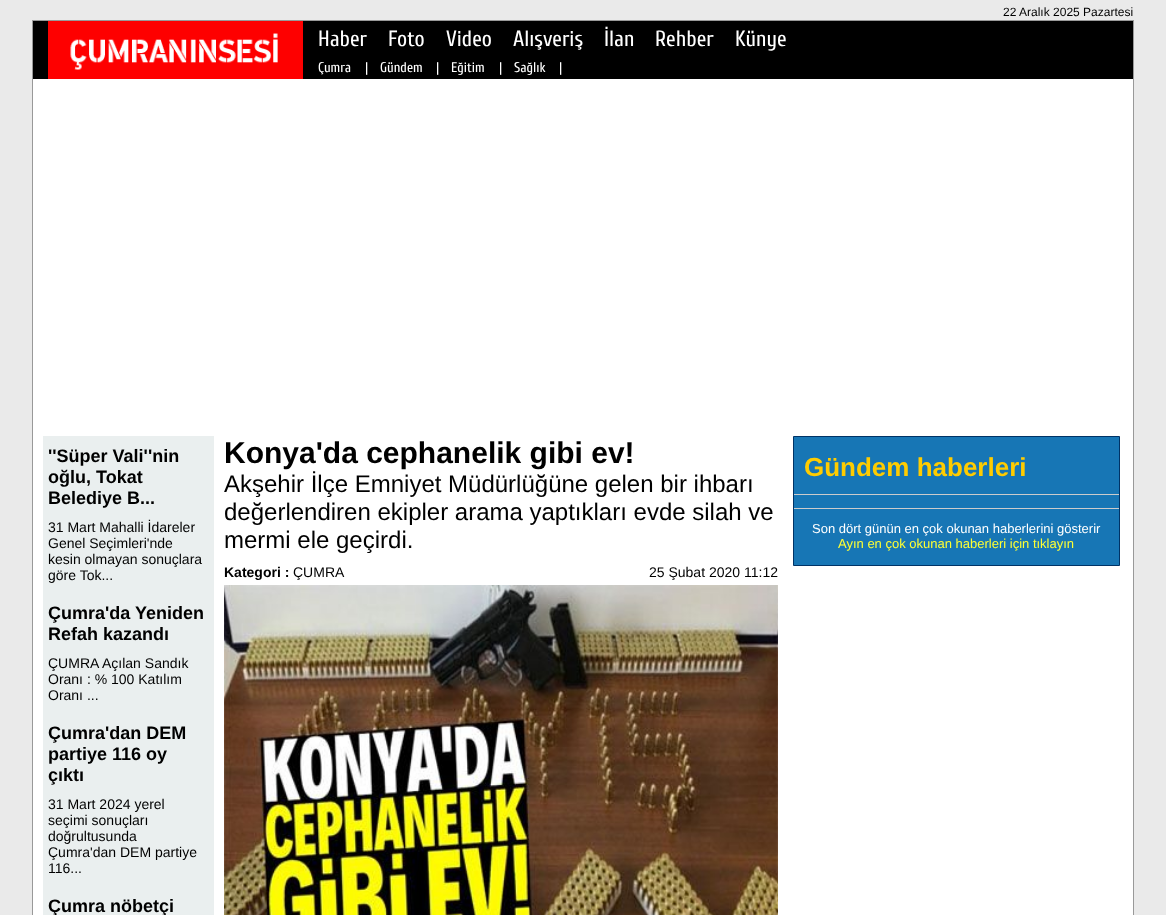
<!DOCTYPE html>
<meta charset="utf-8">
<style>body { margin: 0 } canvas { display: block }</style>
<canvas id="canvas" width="1166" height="915"></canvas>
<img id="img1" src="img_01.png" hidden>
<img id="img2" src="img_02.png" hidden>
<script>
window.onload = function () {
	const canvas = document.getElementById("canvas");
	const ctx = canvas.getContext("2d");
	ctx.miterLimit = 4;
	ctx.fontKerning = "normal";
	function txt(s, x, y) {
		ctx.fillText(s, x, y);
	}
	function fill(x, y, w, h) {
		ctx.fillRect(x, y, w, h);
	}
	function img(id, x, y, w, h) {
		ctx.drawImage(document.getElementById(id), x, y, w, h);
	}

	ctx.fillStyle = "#EAEAEA";
	fill(0, 0, 1166, 915);
	ctx.fillStyle = "#FFFFFF";
	fill(33, 79, 1100, 836);
	ctx.strokeStyle = "#999999";
	ctx.strokeRect(32.5, 20.5, 1101, 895);
	ctx.fillStyle = "#000000";
	fill(33, 21, 1100, 58);
	ctx.fillStyle = "#FE0000";
	fill(48, 21, 255, 58);
	img("img1", 70, 33, 208, 37);
	ctx.fillStyle = "#EAEFEF";
	fill(43, 436, 171, 479);
	img("img2", 224, 585, 554, 330);
	ctx.fillStyle = "#1776B5";
	ctx.beginPath();
	ctx.rect(793.5, 436.5, 326, 129);
	ctx.fill();
	ctx.strokeStyle = "#003366";
	ctx.stroke();
	ctx.fillStyle = "#CCCCCC";
	fill(794, 494, 325, 1);
	fill(794, 508, 325, 1);
	ctx.font = "12px Liberation Sans";
	ctx.fillStyle = "#000000";
	txt("22 Aralık 2025 Pazartesi", 1003, 16);
	ctx.font = "22px Cuprum";
	ctx.fillStyle = "#FFFFFF";
	txt("Haber", 318, 46);
	txt("Foto", 388, 46);
	txt("Video", 446, 46);
	txt("Alışveriş", 513, 46);
	txt("İlan", 604, 46);
	txt("Rehber", 655, 46);
	txt("Künye", 735, 46);
	ctx.font = "14px Cuprum";
	txt("Çumra", 318, 72);
	txt("|", 365, 72);
	txt("Gündem", 380, 72);
	txt("|", 436, 72);
	txt("Eğitim", 451, 72);
	txt("|", 499, 72);
	txt("Sağlık", 514, 72);
	txt("|", 559, 72);
	ctx.font = "bold 18px Liberation Sans";
	ctx.fillStyle = "#000000";
	txt("''Süper Vali''nin", 48, 462);
	txt("oğlu, Tokat", 48, 483);
	txt("Belediye B...", 48, 504);
	ctx.font = "14px Liberation Sans";
	txt("31 Mart Mahalli İdareler", 48, 532);
	txt("Genel Seçimleri'nde", 48, 548);
	txt("kesin olmayan sonuçlara", 48, 564);
	txt("göre Tok...", 48, 580);
	ctx.font = "bold 18px Liberation Sans";
	txt("Çumra'da Yeniden", 48, 619);
	txt("Refah kazandı", 48, 640);
	ctx.font = "14px Liberation Sans";
	txt("ÇUMRA", 48, 668);
	txt("Açılan Sandık", 102, 668);
	txt("Oranı : % 100 Katılım", 48, 684);
	txt("Oranı ...", 48, 700);
	ctx.font = "bold 18px Liberation Sans";
	txt("Çumra'dan DEM", 48, 739);
	txt("partiye 116 oy", 48, 760);
	txt("çıktı", 48, 781);
	ctx.font = "14px Liberation Sans";
	txt("31 Mart 2024 yerel", 48, 809);
	txt("seçimi sonuçları", 48, 825);
	txt("doğrultusunda", 48, 841);
	txt("Çumra'dan DEM partiye", 48, 857);
	txt("116...", 48, 873);
	ctx.font = "bold 18px Liberation Sans";
	txt("Çumra nöbetçi", 48, 912);
	ctx.font = "bold 30px Liberation Sans";
	txt("Konya'da cephanelik gibi ev!", 224, 463);
	ctx.font = "24px Liberation Sans";
	txt("Akşehir İlçe Emniyet Müdürlüğüne gelen bir ihbarı", 224, 492);
	txt("değerlendiren ekipler arama yaptıkları evde silah ve", 224, 520);
	txt("mermi ele geçirdi.", 224, 548);
	ctx.font = "bold 14px Liberation Sans";
	txt("Kategori :", 224, 577);
	ctx.font = "14px Liberation Sans";
	txt("ÇUMRA", 293, 577);
	txt("25 Şubat 2020 11:12", 649, 577);
	ctx.font = "bold 26px Liberation Sans";
	ctx.fillStyle = "#FFCC00";
	txt("Gündem haberleri", 804, 476);
	ctx.font = "13px Liberation Sans";
	ctx.fillStyle = "#FFFFFF";
	txt("Son dört günün en çok okunan haberlerini gösterir", 812, 533);
	ctx.fillStyle = "#FFFF33";
	txt("Ayın en çok okunan haberleri için tıklayın", 838, 548);
};
</script>
